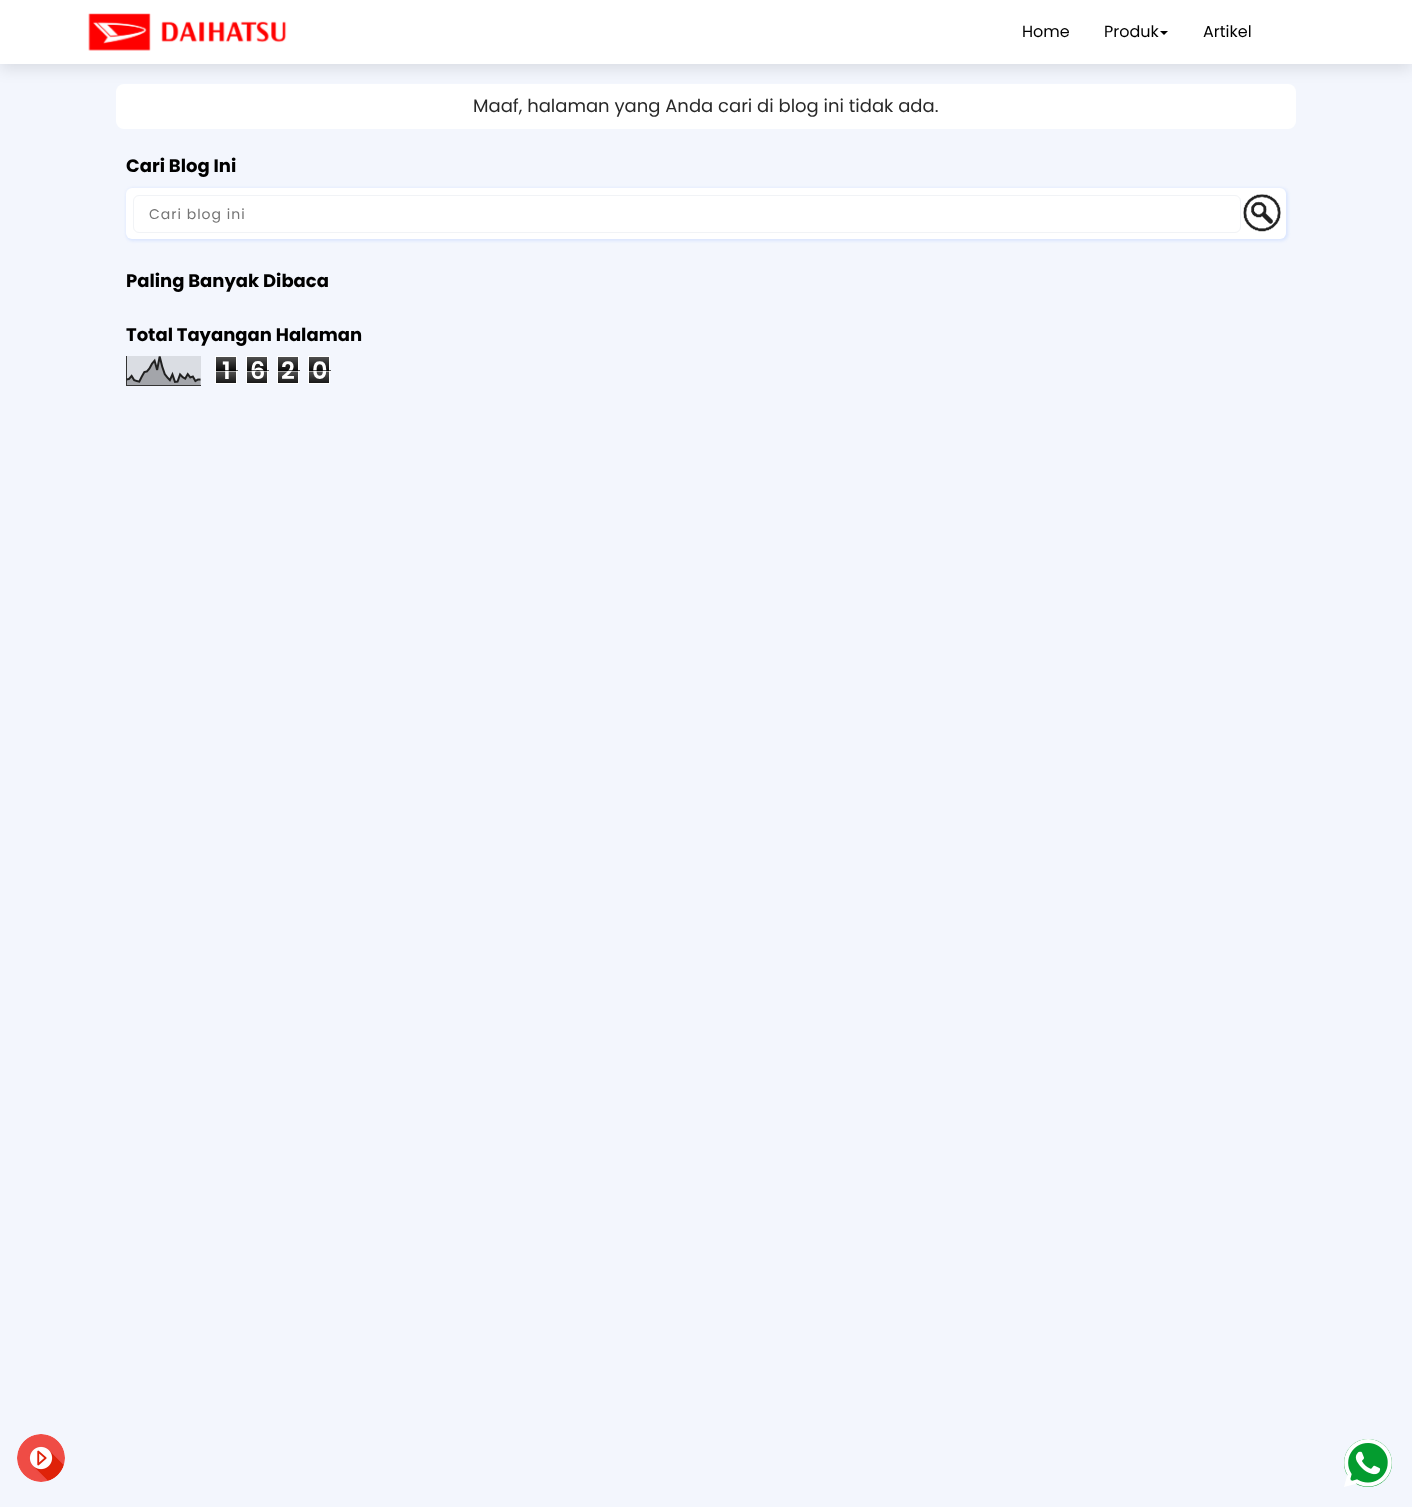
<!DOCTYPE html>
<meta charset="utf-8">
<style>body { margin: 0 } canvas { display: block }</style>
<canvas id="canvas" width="1412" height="1507"></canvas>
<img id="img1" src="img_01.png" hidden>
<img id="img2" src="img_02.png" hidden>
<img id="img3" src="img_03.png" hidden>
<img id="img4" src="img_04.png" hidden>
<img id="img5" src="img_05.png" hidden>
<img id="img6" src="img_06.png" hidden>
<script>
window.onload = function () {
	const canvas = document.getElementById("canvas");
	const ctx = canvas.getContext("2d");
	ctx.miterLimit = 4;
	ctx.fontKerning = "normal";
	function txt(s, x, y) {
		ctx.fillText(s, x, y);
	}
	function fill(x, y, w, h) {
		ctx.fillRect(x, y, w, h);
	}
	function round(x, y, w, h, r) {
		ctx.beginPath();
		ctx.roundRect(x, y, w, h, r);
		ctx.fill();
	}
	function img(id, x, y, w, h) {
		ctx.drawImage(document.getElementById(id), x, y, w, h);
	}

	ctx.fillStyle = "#F3F6FD";
	fill(0, 0, 1412, 1507);
	ctx.fillStyle = "#FFFFFF";
	round(116, 84, 1180, 45, 8);
	ctx.fillStyle = "rgba(0, 0, 0, 0.1)";
	ctx.filter = "blur(7.5px)";
	ctx.beginPath();
	ctx.rect(0, 5, 1412, 64);
	ctx.fill();
	ctx.filter = "none";
	ctx.fillStyle = "#FFFFFF";
	fill(0, 0, 1412, 64);
	img("img1", 88, 13, 199, 38);
	ctx.fillStyle = "#000000";
	ctx.beginPath();
	ctx.moveTo(1160, 31);
	ctx.lineTo(1168, 31);
	ctx.lineTo(1164, 35);
	ctx.closePath();
	ctx.fill();
	ctx.fillStyle = "#DAE5FE";
	ctx.filter = "blur(1.5px)";
	ctx.beginPath();
	ctx.roundRect(126, 188, 1162, 53, 7);
	ctx.fill();
	ctx.filter = "none";
	ctx.fillStyle = "#FFFFFF";
	round(126, 188, 1160, 51, 6);
	ctx.beginPath();
	ctx.roundRect(133.5, 195.5, 1107, 37, 5.5);
	ctx.strokeStyle = "#F1F3F6";
	ctx.stroke();
	img("img2", 1243, 194, 38, 38);
	img("img3", 126, 356, 75, 30);
	img("img4", 216, 357, 20, 26);
	ctx.strokeStyle = "#FFFFFF";
	ctx.strokeRect(215.5, 356.5, 21, 27);
	img("img4", 247, 357, 20, 26);
	ctx.strokeRect(246.5, 356.5, 21, 27);
	img("img4", 278, 357, 20, 26);
	ctx.strokeRect(277.5, 356.5, 21, 27);
	img("img4", 309, 357, 20, 26);
	ctx.strokeRect(308.5, 356.5, 21, 27);
	img("img5", 17, 1434, 48, 48);
	ctx.fillStyle = "#049C2F";
	ctx.beginPath();
	ctx.arc(1368, 1463, 24, 0, Math.PI * 2);
	ctx.fill();
	img("img6", 1344, 1439, 48, 48);
	ctx.font = "16px Poppins";
	ctx.fillStyle = "#000000";
	txt("Home", 1022, 37);
	txt("Produk", 1104, 37);
	txt("Artikel", 1203, 37);
	ctx.font = "18px Poppins";
	ctx.fillStyle = "#292929";
	txt("Maaf, halaman yang Anda cari di blog ini tidak ada.", 473, 112);
	ctx.font = "bold 18px Poppins";
	ctx.fillStyle = "#000000";
	txt("Cari Blog Ini", 126, 172);
	ctx.letterSpacing = "1px";
	ctx.font = "14px Poppins";
	ctx.fillStyle = "#757575";
	txt("Cari blog ini", 149, 219);
	ctx.letterSpacing = "0px";
	ctx.font = "bold 18px Poppins";
	ctx.fillStyle = "#000000";
	txt("Paling Banyak Dibaca", 126, 287);
	txt("Total Tayangan Halaman", 126, 341);
	ctx.font = "600 24px Poppins";
	ctx.fillStyle = "#FFFFFF";
	txt("1", 222, 379);
	ctx.fillStyle = "rgba(0, 0, 0, 0.65)";
	fill(216, 370, 22, 1);
	ctx.fillStyle = "rgba(255, 255, 255, 0.65)";
	fill(216, 371, 22, 1);
	ctx.fillStyle = "#FFFFFF";
	txt("6", 250, 379);
	ctx.fillStyle = "rgba(0, 0, 0, 0.65)";
	fill(247, 370, 22, 1);
	ctx.fillStyle = "rgba(255, 255, 255, 0.65)";
	fill(247, 371, 22, 1);
	ctx.fillStyle = "#FFFFFF";
	txt("2", 281, 379);
	ctx.fillStyle = "rgba(0, 0, 0, 0.65)";
	fill(278, 370, 22, 1);
	ctx.fillStyle = "rgba(255, 255, 255, 0.65)";
	fill(278, 371, 22, 1);
	ctx.fillStyle = "#FFFFFF";
	txt("0", 312, 379);
	ctx.fillStyle = "rgba(0, 0, 0, 0.65)";
	fill(309, 370, 22, 1);
	ctx.fillStyle = "rgba(255, 255, 255, 0.65)";
	fill(309, 371, 22, 1);
};
</script>
